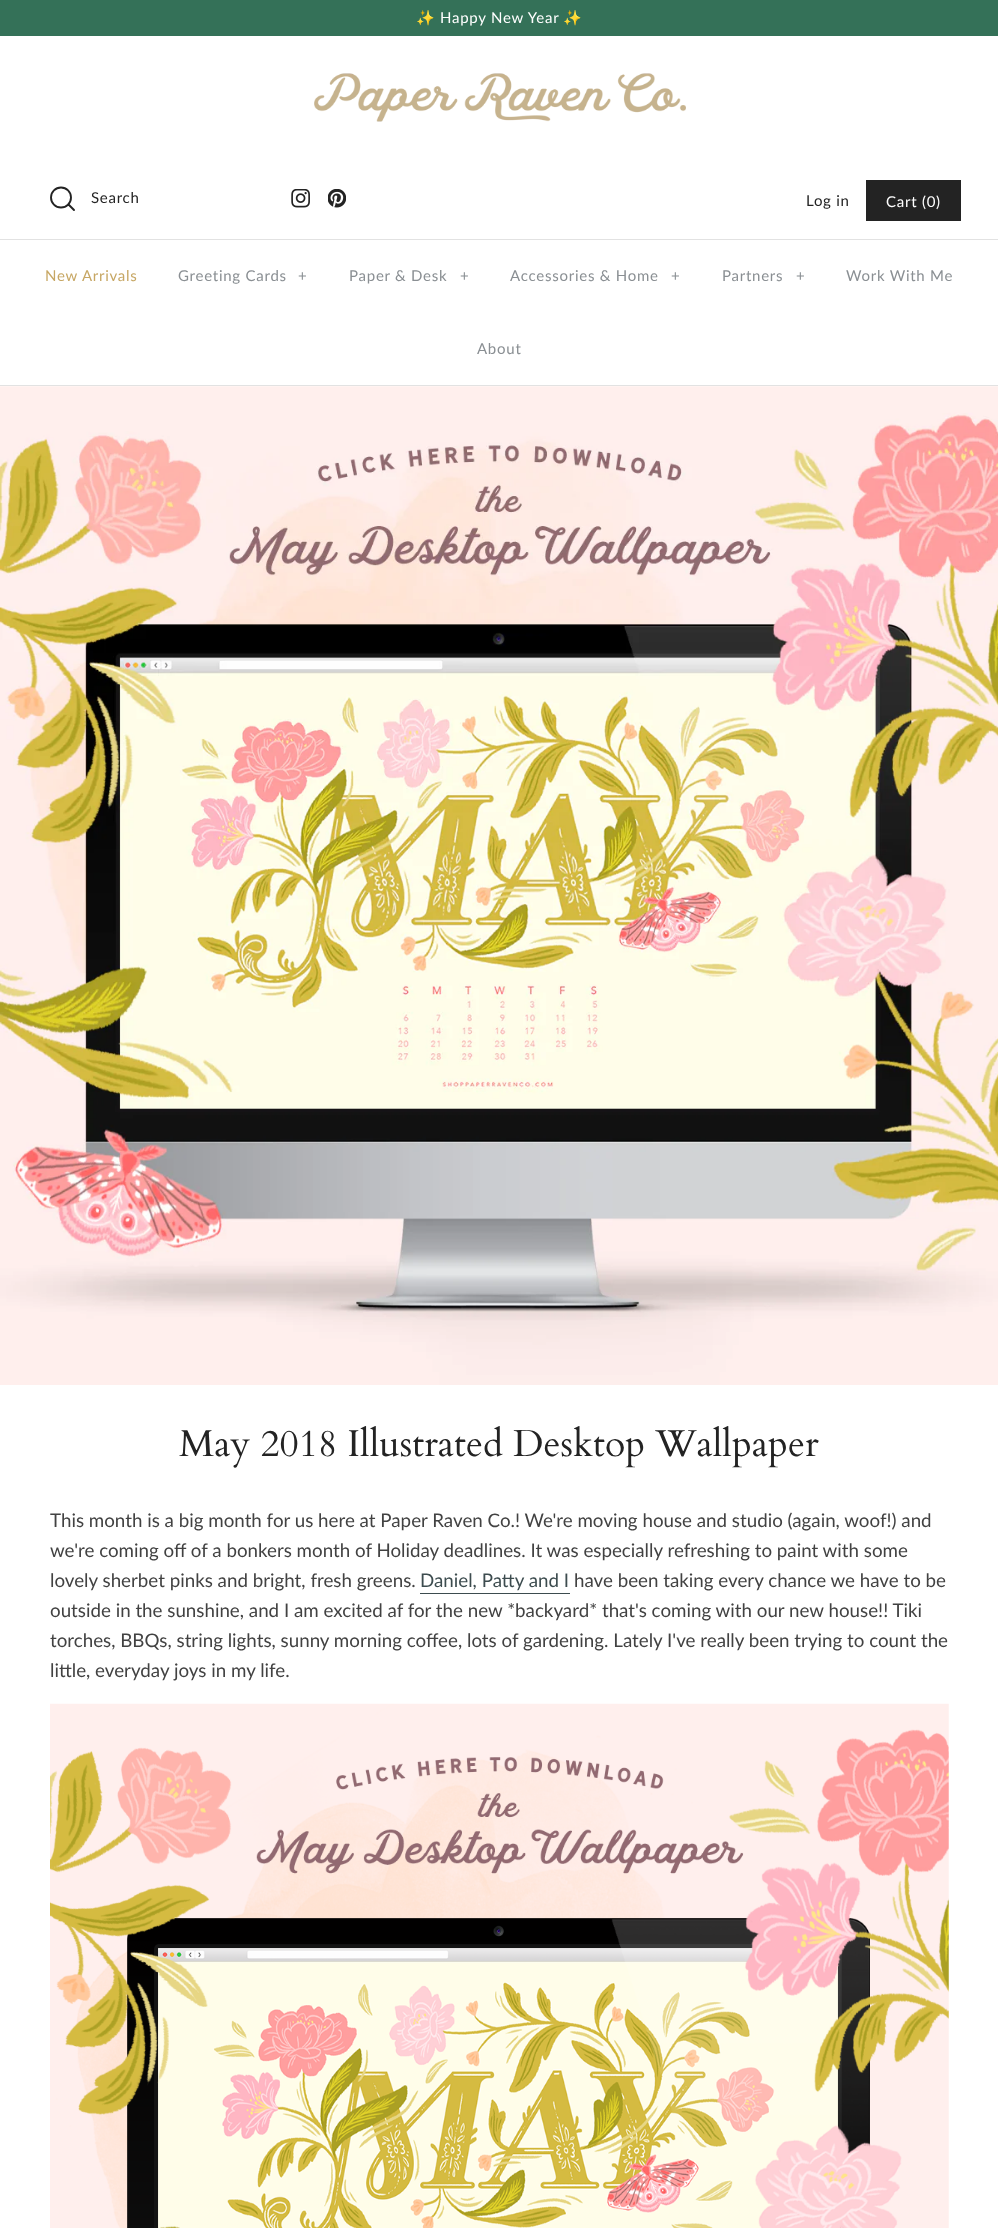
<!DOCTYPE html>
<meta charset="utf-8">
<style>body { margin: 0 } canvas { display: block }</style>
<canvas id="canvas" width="998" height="2228"></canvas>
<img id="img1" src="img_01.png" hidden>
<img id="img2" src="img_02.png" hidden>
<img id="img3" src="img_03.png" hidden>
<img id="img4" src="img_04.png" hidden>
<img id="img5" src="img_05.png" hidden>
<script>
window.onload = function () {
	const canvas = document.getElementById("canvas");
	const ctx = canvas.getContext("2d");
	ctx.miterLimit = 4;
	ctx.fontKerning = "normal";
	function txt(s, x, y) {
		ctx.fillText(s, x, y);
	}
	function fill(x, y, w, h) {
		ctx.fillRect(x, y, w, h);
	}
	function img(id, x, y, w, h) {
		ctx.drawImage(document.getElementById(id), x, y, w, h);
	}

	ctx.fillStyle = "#FFFFFF";
	fill(0, 0, 998, 2228);
	ctx.fillStyle = "#347158";
	fill(0, 0, 998, 36);
	img("img1", 314, 73, 372, 49);
	ctx.beginPath();
	ctx.arc(61, 197.5, 10, 0, Math.PI * 2);
	ctx.strokeStyle = "#232323";
	ctx.lineWidth = 1.9;
	ctx.stroke();
	ctx.beginPath();
	ctx.moveTo(74, 210);
	ctx.lineTo(68.5, 204.5);
	ctx.lineCap = "round";
	ctx.lineJoin = "round";
	ctx.stroke();
	img("img2", 291, 189, 19, 19);
	img("img3", 328, 189, 18, 19);
	ctx.fillStyle = "#232323";
	fill(866, 180, 95, 41);
	ctx.fillStyle = "#E2E2E2";
	fill(0, 385, 998, 1);
	fill(0, 239, 998, 1);
	img("img4", 0, 386, 998, 999);
	ctx.fillStyle = "#3D4C4F";
	fill(420, 1593, 150, 1);
	img("img5", 50, 1703, 899, 525);
	ctx.letterSpacing = "0.75px";
	ctx.font = "15px Noto Color Emoji";
	ctx.fillStyle = "#FFFFFF";
	txt("✨️", 416, 23);
	ctx.font = "15px Lato";
	txt("Happy New Year", 440, 23);
	ctx.font = "15px Noto Color Emoji";
	txt("✨️", 563, 23);
	ctx.font = "15px Lato";
	ctx.fillStyle = "#232323";
	txt("Search", 91, 203);
	txt("Log in", 806, 206);
	ctx.fillStyle = "#FFFFFF";
	txt("Cart (0)", 886, 207);
	ctx.fillStyle = "#C7A764";
	txt("New Arrivals", 45, 281);
	ctx.fillStyle = "#8A8F93";
	txt("Greeting Cards", 178, 281);
	txt("+", 298, 281);
	txt("Paper & Desk", 349, 281);
	txt("+", 460, 281);
	txt("Accessories & Home", 510, 281);
	txt("+", 671, 281);
	txt("Partners", 722, 281);
	txt("+", 796, 281);
	txt("Work With Me", 846, 281);
	txt("About", 477, 354);
	ctx.letterSpacing = "0px";
	ctx.font = "37.5px Cardo";
	ctx.fillStyle = "#232323";
	txt("May 2018 Illustrated Desktop Wallpaper", 179, 1456);
	ctx.font = "18.75px Lato";
	ctx.fillStyle = "#424242";
	txt("This month is a big month for us here at Paper Raven Co.! We're moving house and studio (again, woof!) and", 50, 1527);
	txt("we're coming off of a bonkers month of Holiday deadlines. It was especially refreshing to paint with some", 50, 1557);
	txt("lovely sherbet pinks and bright, fresh greens.", 50, 1587);
	ctx.fillStyle = "#3D4C4F";
	txt("Daniel, Patty and I", 420, 1587);
	ctx.fillStyle = "#424242";
	txt("have been taking every chance we have to be", 574, 1587);
	txt("outside in the sunshine, and I am excited af for the new *backyard* that's coming with our new house!! Tiki", 50, 1617);
	txt("torches, BBQs, string lights, sunny morning coffee, lots of gardening. Lately I've really been trying to count the", 50, 1647);
	txt("little, everyday joys in my life.", 50, 1677);
};
</script>
